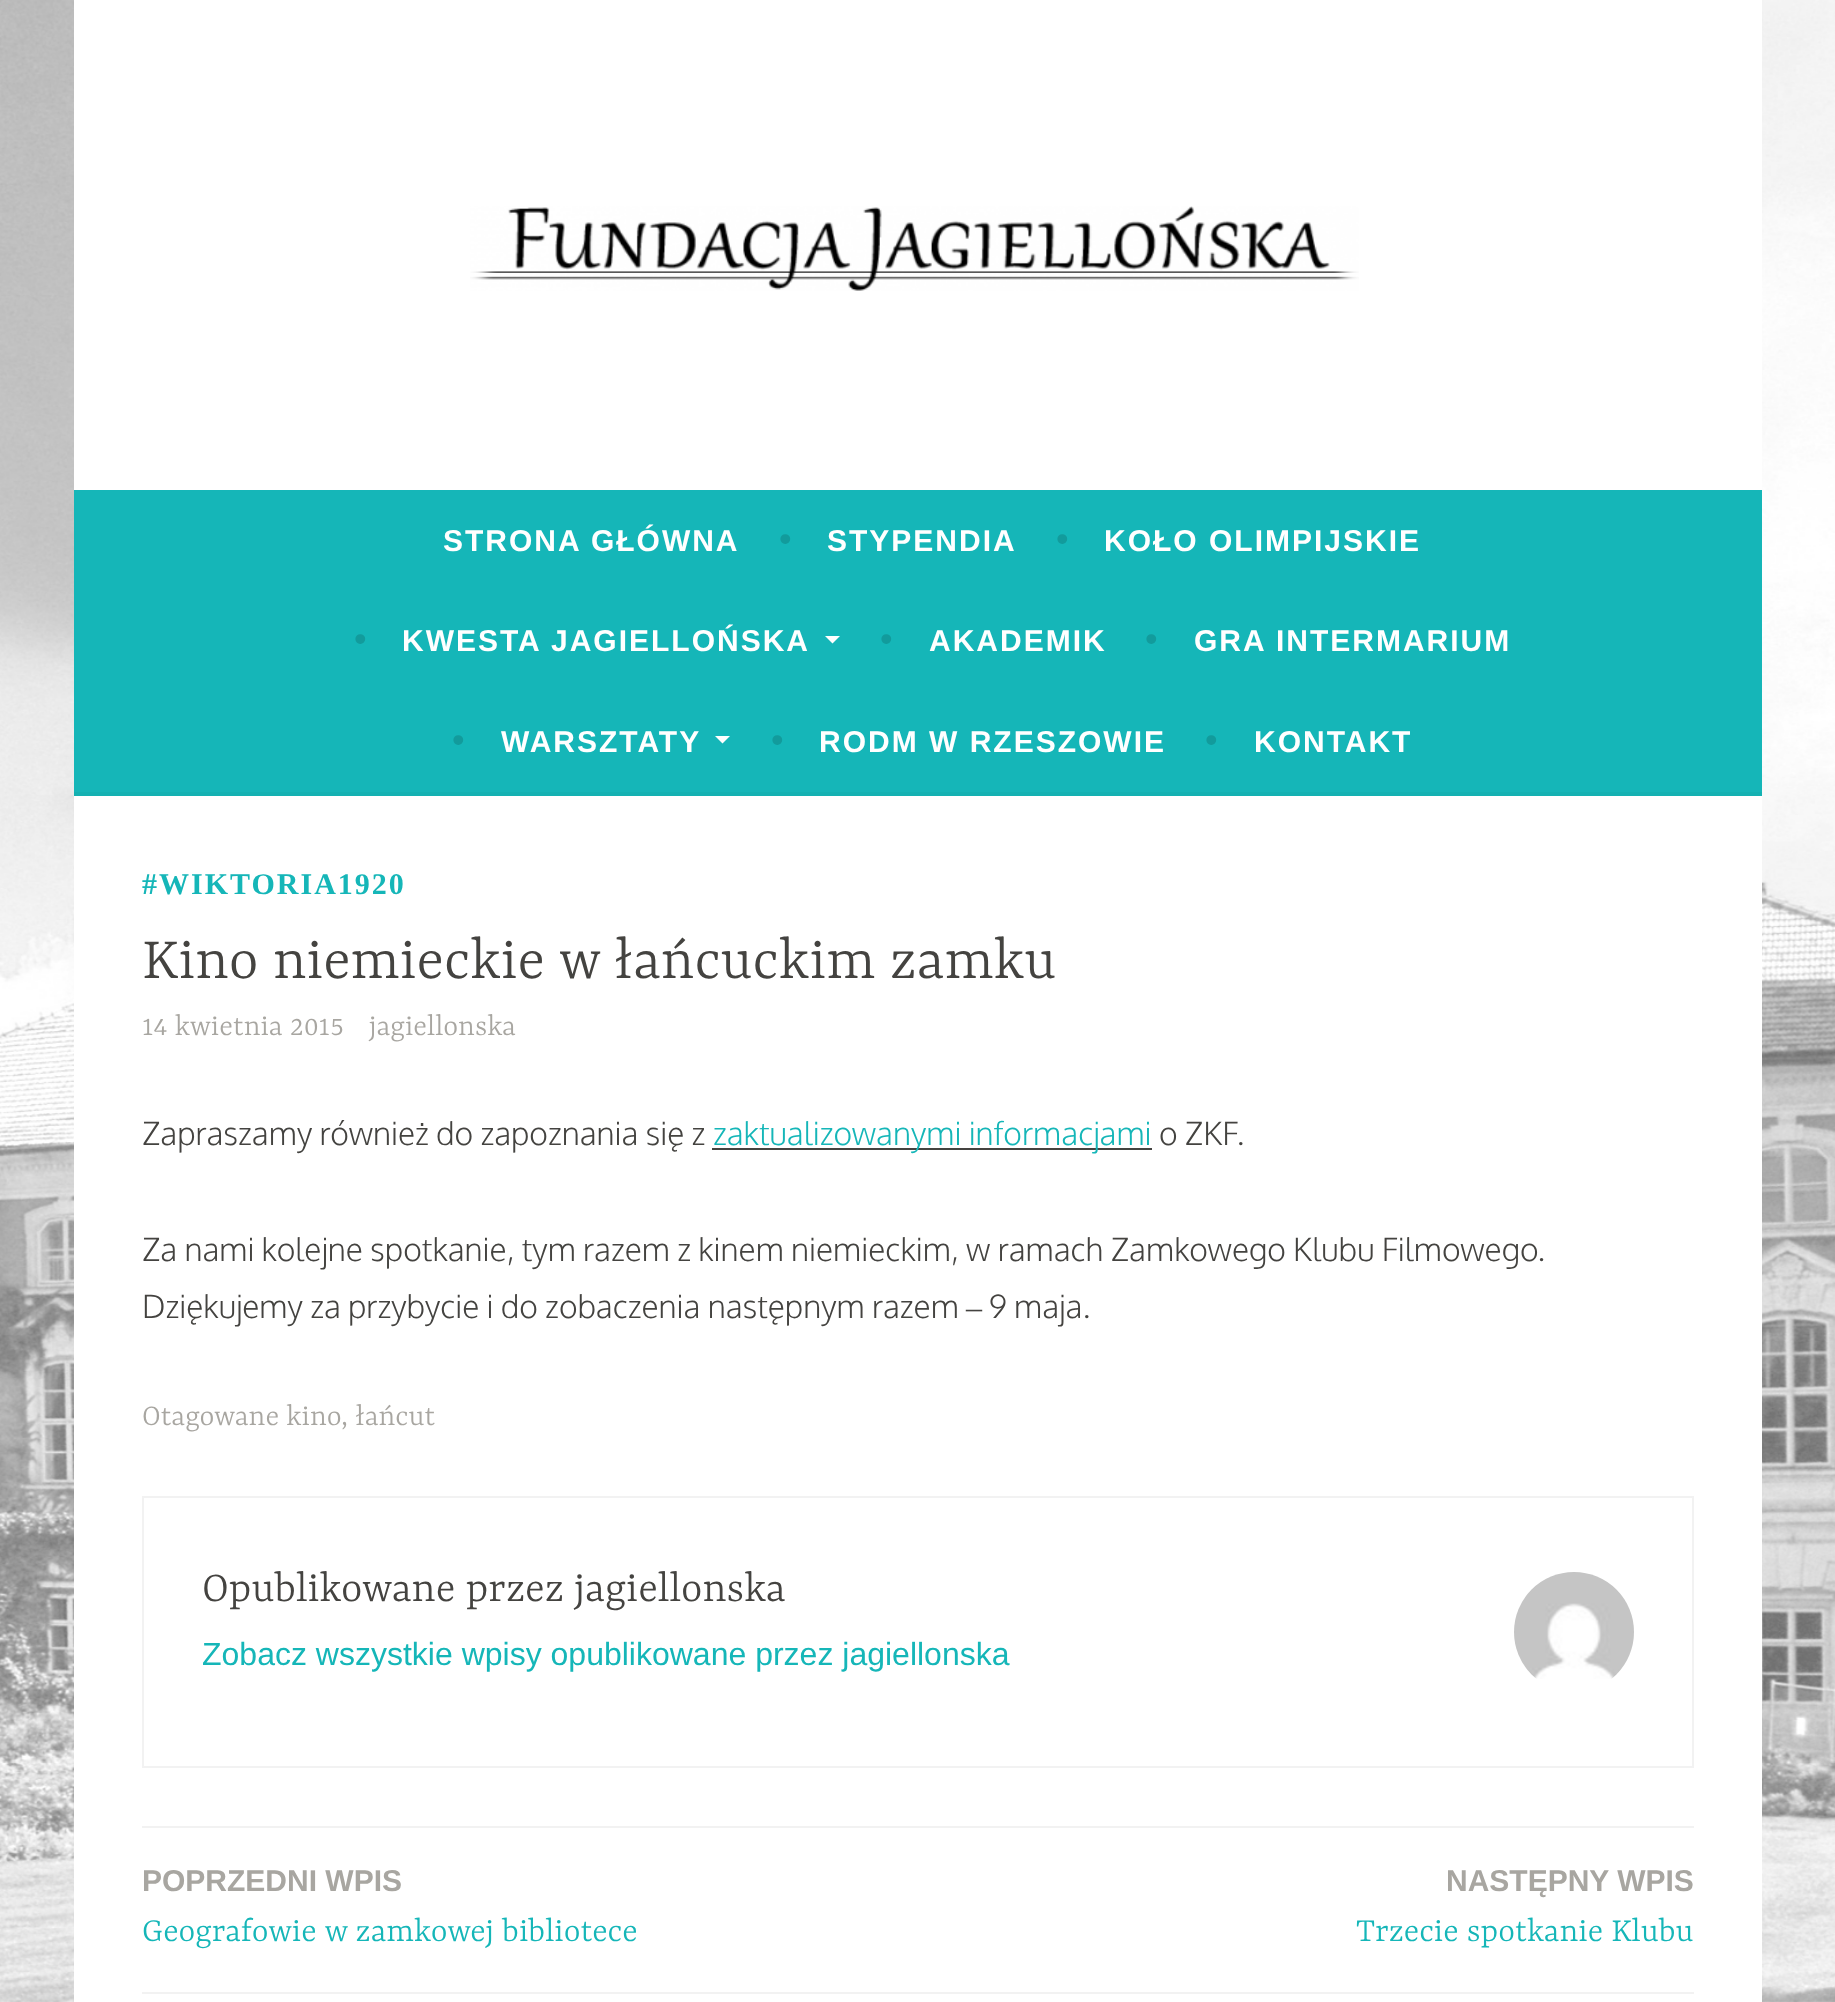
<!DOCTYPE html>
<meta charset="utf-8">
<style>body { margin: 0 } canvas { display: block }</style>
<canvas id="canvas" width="1835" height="2002"></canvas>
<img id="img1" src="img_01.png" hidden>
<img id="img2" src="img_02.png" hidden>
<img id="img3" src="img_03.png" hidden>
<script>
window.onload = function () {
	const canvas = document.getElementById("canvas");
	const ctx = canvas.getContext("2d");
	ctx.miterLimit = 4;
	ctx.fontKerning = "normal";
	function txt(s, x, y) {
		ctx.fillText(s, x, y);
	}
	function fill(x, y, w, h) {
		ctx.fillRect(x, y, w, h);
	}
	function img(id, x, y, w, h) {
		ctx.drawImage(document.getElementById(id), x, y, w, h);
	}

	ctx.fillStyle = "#FFFFFF";
	fill(0, 0, 1835, 2002);
	img("img1", 0, 0, 1835, 2002);
	fill(74, 0, 1688, 490);
	img("img2", 470, 206, 889, 85);
	ctx.fillStyle = "#15B6B8";
	fill(74, 490, 1688, 302);
	ctx.fillStyle = "#14B1B2";
	fill(74, 792, 1688, 4);
	ctx.fillStyle = "#FFFFFF";
	ctx.beginPath();
	ctx.moveTo(825, 636);
	ctx.lineTo(840, 636);
	ctx.lineTo(832.5, 643.5);
	ctx.closePath();
	ctx.fill();
	ctx.beginPath();
	ctx.moveTo(715, 736);
	ctx.lineTo(730, 736);
	ctx.lineTo(722.5, 743.5);
	ctx.closePath();
	ctx.fill();
	fill(74, 796, 1688, 1206);
	ctx.fillStyle = "#444340";
	fill(712, 1148, 440, 2);
	ctx.strokeStyle = "#F2F2F2";
	ctx.lineWidth = 2;
	ctx.strokeRect(143, 1497, 1550, 270);
	img("img3", 1514, 1572, 120, 107);
	ctx.fillStyle = "#F2F2F2";
	fill(142, 1826, 1552, 2);
	fill(142, 1992, 1552, 2);
	ctx.letterSpacing = "2px";
	ctx.font = "bold 30px Liberation Sans";
	ctx.fillStyle = "#FFFFFF";
	txt("STRONA GŁÓWNA", 443, 551);
	ctx.letterSpacing = "0px";
	ctx.font = "36px Liberation Sans";
	ctx.fillStyle = "#129B9C";
	txt("•", 779, 551);
	ctx.letterSpacing = "2px";
	ctx.font = "bold 30px Liberation Sans";
	ctx.fillStyle = "#FFFFFF";
	txt("STYPENDIA", 827, 551);
	ctx.letterSpacing = "0px";
	ctx.font = "36px Liberation Sans";
	ctx.fillStyle = "#129B9C";
	txt("•", 1056, 551);
	ctx.letterSpacing = "2px";
	ctx.font = "bold 30px Liberation Sans";
	ctx.fillStyle = "#FFFFFF";
	txt("KOŁO OLIMPIJSKIE", 1104, 551);
	ctx.letterSpacing = "0px";
	ctx.font = "36px Liberation Sans";
	ctx.fillStyle = "#129B9C";
	txt("•", 354, 651);
	ctx.letterSpacing = "2px";
	ctx.font = "bold 30px Liberation Sans";
	ctx.fillStyle = "#FFFFFF";
	txt("KWESTA JAGIELLOŃSKA", 402, 651);
	ctx.letterSpacing = "0px";
	ctx.font = "36px Liberation Sans";
	ctx.fillStyle = "#129B9C";
	txt("•", 880, 651);
	ctx.letterSpacing = "2px";
	ctx.font = "bold 30px Liberation Sans";
	ctx.fillStyle = "#FFFFFF";
	txt("AKADEMIK", 929, 651);
	ctx.letterSpacing = "0px";
	ctx.font = "36px Liberation Sans";
	ctx.fillStyle = "#129B9C";
	txt("•", 1145, 651);
	ctx.letterSpacing = "2px";
	ctx.font = "bold 30px Liberation Sans";
	ctx.fillStyle = "#FFFFFF";
	txt("GRA INTERMARIUM", 1194, 651);
	ctx.letterSpacing = "0px";
	ctx.font = "36px Liberation Sans";
	ctx.fillStyle = "#129B9C";
	txt("•", 452, 752);
	ctx.letterSpacing = "2px";
	ctx.font = "bold 30px Liberation Sans";
	ctx.fillStyle = "#FFFFFF";
	txt("WARSZTATY", 501, 752);
	ctx.letterSpacing = "0px";
	ctx.font = "36px Liberation Sans";
	ctx.fillStyle = "#129B9C";
	txt("•", 771, 752);
	ctx.letterSpacing = "2px";
	ctx.font = "bold 30px Liberation Sans";
	ctx.fillStyle = "#FFFFFF";
	txt("RODM W RZESZOWIE", 819, 752);
	ctx.letterSpacing = "0px";
	ctx.font = "36px Liberation Sans";
	ctx.fillStyle = "#129B9C";
	txt("•", 1205, 752);
	ctx.letterSpacing = "2px";
	ctx.font = "bold 30px Liberation Sans";
	ctx.fillStyle = "#FFFFFF";
	txt("KONTAKT", 1254, 752);
	ctx.font = "bold 30px Liberation Serif";
	ctx.fillStyle = "#15B6B8";
	txt("#WIKTORIA1920", 142, 894);
	ctx.letterSpacing = "0px";
	ctx.font = "300 64px Yrsa";
	ctx.fillStyle = "#444340";
	txt("Kino niemieckie w łańcuckim zamku", 142, 978);
	ctx.font = "300 32px Yrsa";
	ctx.fillStyle = "#A8A6A1";
	txt("14 kwietnia 2015", 142, 1035);
	txt("jagiellonska", 369, 1035);
	ctx.font = "300 32px Oxygen";
	ctx.fillStyle = "#444340";
	txt("Zapraszamy również do zapoznania się z", 142, 1145);
	ctx.fillStyle = "#15B6B8";
	txt("zaktualizowanymi informacjami", 713, 1145);
	ctx.fillStyle = "#444340";
	txt("o ZKF.", 1159, 1145);
	txt("Za nami kolejne spotkanie, tym razem z kinem niemieckim, w ramach Zamkowego Klubu Filmowego.", 142, 1261);
	txt("Dziękujemy za przybycie i do zobaczenia następnym razem", 142, 1318);
	ctx.font = "32px Liberation Serif";
	txt("–", 966, 1318);
	ctx.font = "300 32px Oxygen";
	txt("9 maja.", 989, 1318);
	ctx.font = "300 32px Yrsa";
	ctx.fillStyle = "#A8A6A1";
	txt("Otagowane kino", 142, 1425);
	txt(", łańcut", 341, 1425);
	ctx.font = "300 46px Yrsa";
	ctx.fillStyle = "#444340";
	txt("Opublikowane przez jagiellonska", 202, 1601);
	ctx.font = "32px Liberation Sans";
	ctx.fillStyle = "#15B6B8";
	txt("Zobacz wszystkie wpisy opublikowane przez jagiellonska", 202, 1665);
	ctx.font = "bold 30px Liberation Sans";
	ctx.fillStyle = "#A8A6A1";
	txt("POPRZEDNI WPIS", 142, 1891);
	ctx.font = "300 36px Yrsa";
	ctx.fillStyle = "#15B6B8";
	txt("Geografowie w zamkowej bibliotece", 142, 1941);
	ctx.font = "bold 30px Liberation Sans";
	ctx.fillStyle = "#A8A6A1";
	txt("NASTĘPNY WPIS", 1446, 1891);
	ctx.font = "300 36px Yrsa";
	ctx.fillStyle = "#15B6B8";
	txt("Trzecie spotkanie Klubu", 1356, 1941);
};
</script>
